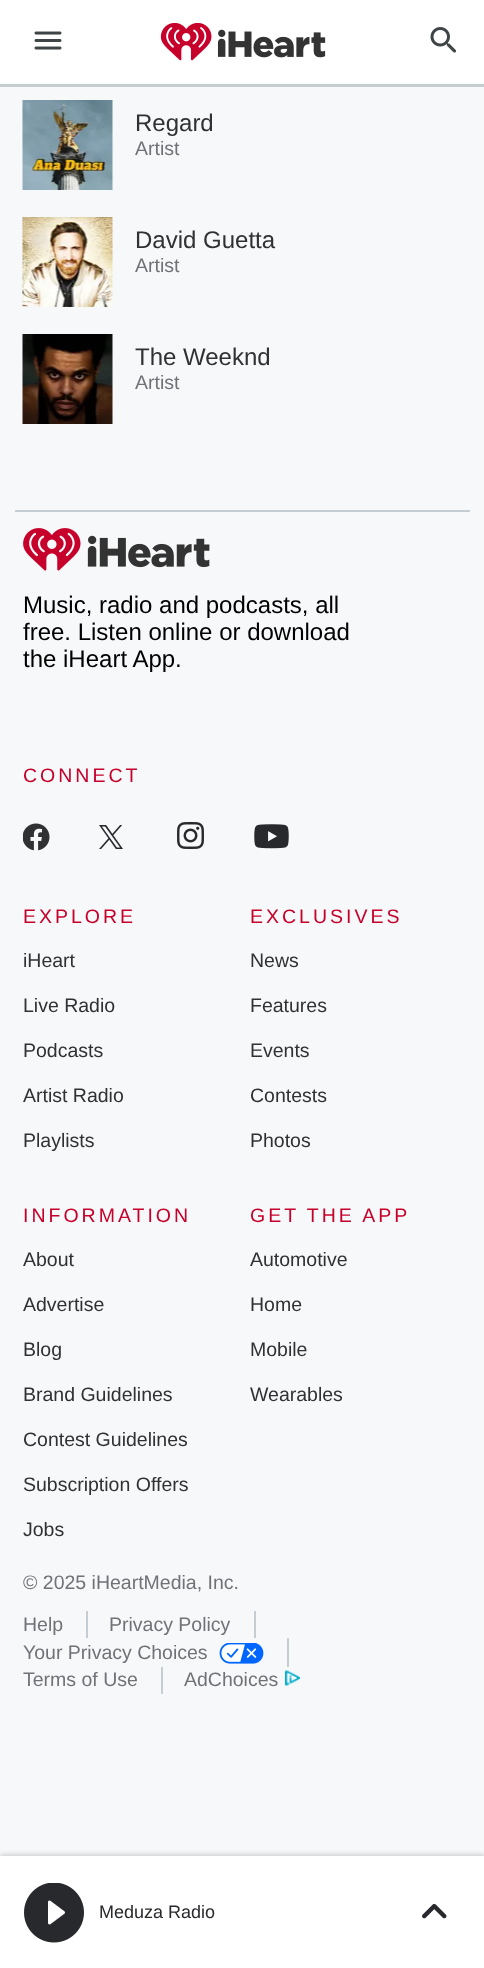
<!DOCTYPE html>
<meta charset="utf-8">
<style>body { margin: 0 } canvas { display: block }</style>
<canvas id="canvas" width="484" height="1968"></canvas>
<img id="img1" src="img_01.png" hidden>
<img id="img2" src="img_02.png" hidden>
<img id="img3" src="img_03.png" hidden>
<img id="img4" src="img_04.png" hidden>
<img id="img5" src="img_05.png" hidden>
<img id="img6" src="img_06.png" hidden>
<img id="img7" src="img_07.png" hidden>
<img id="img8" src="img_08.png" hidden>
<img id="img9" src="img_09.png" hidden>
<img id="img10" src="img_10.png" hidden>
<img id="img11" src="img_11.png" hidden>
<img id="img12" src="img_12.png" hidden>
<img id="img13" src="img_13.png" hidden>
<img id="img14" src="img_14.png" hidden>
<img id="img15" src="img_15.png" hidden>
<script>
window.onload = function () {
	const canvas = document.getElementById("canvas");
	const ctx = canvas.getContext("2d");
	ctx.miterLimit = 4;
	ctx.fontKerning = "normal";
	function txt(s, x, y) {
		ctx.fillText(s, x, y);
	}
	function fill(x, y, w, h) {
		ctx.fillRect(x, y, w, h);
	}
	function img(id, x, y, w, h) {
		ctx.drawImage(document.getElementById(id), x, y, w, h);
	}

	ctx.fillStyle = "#F6F8F9";
	fill(0, 0, 484, 1968);
	ctx.fillStyle = "#FFFFFF";
	fill(0, 0, 484, 84);
	ctx.fillStyle = "#C5CDD2";
	fill(0, 84, 484, 3);
	img("img1", 34, 31, 28, 19);
	img("img2", 160, 23, 166, 38);
	img("img3", 430, 27, 26, 26);
	img("img4", 22, 100, 91, 90);
	img("img5", 22, 217, 91, 90);
	img("img6", 22, 334, 91, 90);
	fill(15, 510, 455, 2);
	img("img7", 23, 528, 187, 43);
	img("img8", 23, 823, 27, 28);
	img("img9", 99, 825, 24, 24);
	img("img10", 177, 822, 27, 27);
	img("img11", 254, 824, 35, 25);
	fill(86, 1611, 2, 27);
	fill(254, 1611, 2, 27);
	fill(287, 1638, 2, 29);
	img("img12", 219, 1643, 45, 21);
	fill(161, 1667, 2, 27);
	img("img13", 285, 1670, 15, 16);
	ctx.fillStyle = "rgba(0, 0, 0, 0.15)";
	ctx.filter = "blur(2px)";
	ctx.beginPath();
	ctx.rect(0, 1854, 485, 113);
	ctx.fill();
	ctx.filter = "none";
	ctx.fillStyle = "#FFFFFF";
	fill(0, 1856, 484, 112);
	img("img14", 24, 1883, 60, 60);
	img("img15", 422, 1903, 25, 16);
	ctx.font = "24px Liberation Sans";
	ctx.fillStyle = "#2F3133";
	txt("Regard", 135, 131);
	ctx.font = "19.5px Liberation Sans";
	ctx.fillStyle = "#717277";
	txt("Artist", 135, 155);
	ctx.font = "24px Liberation Sans";
	ctx.fillStyle = "#2F3133";
	txt("David Guetta", 135, 248);
	ctx.font = "19.5px Liberation Sans";
	ctx.fillStyle = "#717277";
	txt("Artist", 135, 272);
	ctx.font = "24px Liberation Sans";
	ctx.fillStyle = "#2F3133";
	txt("The Weeknd", 135, 365);
	ctx.font = "19.5px Liberation Sans";
	ctx.fillStyle = "#717277";
	txt("Artist", 135, 389);
	ctx.font = "24px Liberation Sans";
	ctx.fillStyle = "#000000";
	txt("Music, radio and podcasts, all", 23, 613);
	txt("free. Listen online or download", 23, 640);
	txt("the iHeart App.", 23, 667);
	ctx.letterSpacing = "3px";
	ctx.font = "19.5px Liberation Sans";
	ctx.fillStyle = "#C6002B";
	txt("CONNECT", 23, 782);
	txt("EXPLORE", 23, 923);
	ctx.letterSpacing = "0px";
	ctx.fillStyle = "#2F3133";
	txt("iHeart", 23, 967);
	txt("Live Radio", 23, 1012);
	txt("Podcasts", 23, 1057);
	txt("Artist Radio", 23, 1102);
	txt("Playlists", 23, 1147);
	ctx.letterSpacing = "3px";
	ctx.fillStyle = "#C6002B";
	txt("EXCLUSIVES", 250, 923);
	ctx.letterSpacing = "0px";
	ctx.fillStyle = "#2F3133";
	txt("News", 250, 967);
	txt("Features", 250, 1012);
	txt("Events", 250, 1057);
	txt("Contests", 250, 1102);
	txt("Photos", 250, 1147);
	ctx.letterSpacing = "3px";
	ctx.fillStyle = "#C6002B";
	txt("INFORMATION", 23, 1222);
	ctx.letterSpacing = "0px";
	ctx.fillStyle = "#2F3133";
	txt("About", 23, 1266);
	txt("Advertise", 23, 1311);
	txt("Blog", 23, 1356);
	txt("Brand Guidelines", 23, 1401);
	txt("Contest Guidelines", 23, 1446);
	txt("Subscription Offers", 23, 1491);
	txt("Jobs", 23, 1536);
	ctx.letterSpacing = "3px";
	ctx.fillStyle = "#C6002B";
	txt("GET THE APP", 250, 1222);
	ctx.letterSpacing = "0px";
	ctx.fillStyle = "#2F3133";
	txt("Automotive", 250, 1266);
	txt("Home", 250, 1311);
	txt("Mobile", 250, 1356);
	txt("Wearables", 250, 1401);
	ctx.fillStyle = "#717277";
	txt("© 2025 iHeartMedia, Inc.", 23, 1589);
	txt("Help", 23, 1631);
	txt("Privacy Policy", 109, 1631);
	txt("Your Privacy Choices", 23, 1659);
	txt("Terms of Use", 23, 1686);
	txt("AdChoices", 184, 1686);
	ctx.font = "18px Liberation Sans";
	ctx.fillStyle = "#27292D";
	txt("Meduza Radio", 99, 1918);
};
</script>
